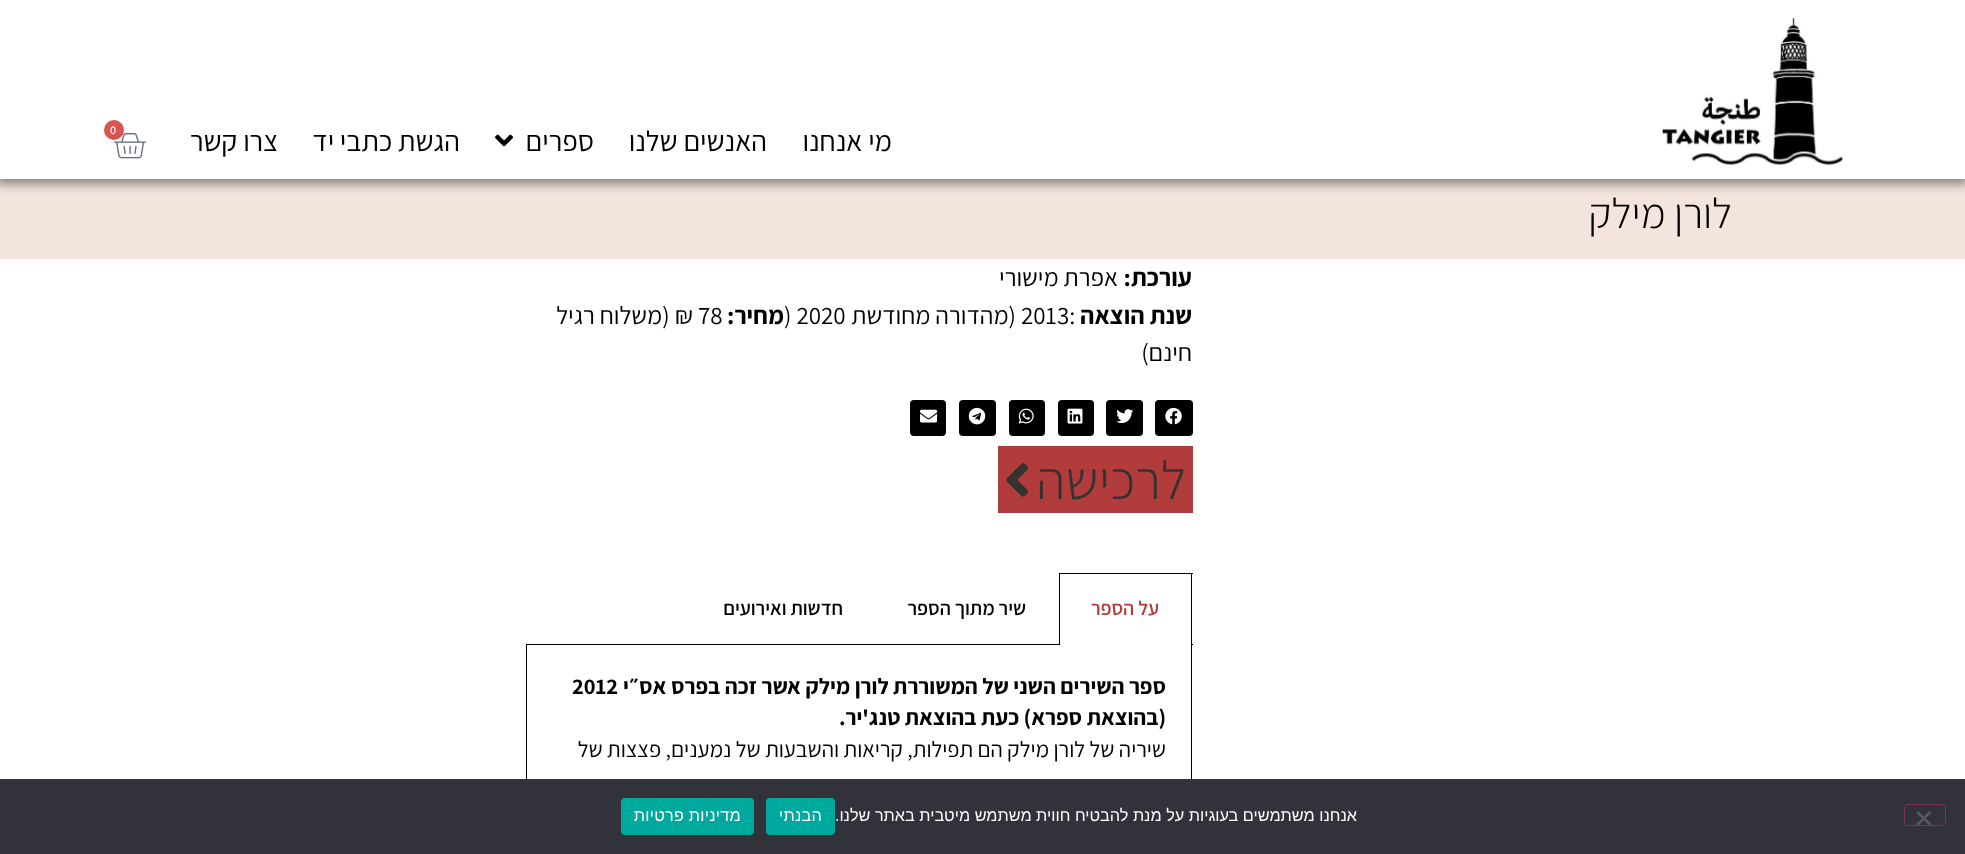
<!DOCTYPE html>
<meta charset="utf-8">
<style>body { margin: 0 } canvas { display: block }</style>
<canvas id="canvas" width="1965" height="854"></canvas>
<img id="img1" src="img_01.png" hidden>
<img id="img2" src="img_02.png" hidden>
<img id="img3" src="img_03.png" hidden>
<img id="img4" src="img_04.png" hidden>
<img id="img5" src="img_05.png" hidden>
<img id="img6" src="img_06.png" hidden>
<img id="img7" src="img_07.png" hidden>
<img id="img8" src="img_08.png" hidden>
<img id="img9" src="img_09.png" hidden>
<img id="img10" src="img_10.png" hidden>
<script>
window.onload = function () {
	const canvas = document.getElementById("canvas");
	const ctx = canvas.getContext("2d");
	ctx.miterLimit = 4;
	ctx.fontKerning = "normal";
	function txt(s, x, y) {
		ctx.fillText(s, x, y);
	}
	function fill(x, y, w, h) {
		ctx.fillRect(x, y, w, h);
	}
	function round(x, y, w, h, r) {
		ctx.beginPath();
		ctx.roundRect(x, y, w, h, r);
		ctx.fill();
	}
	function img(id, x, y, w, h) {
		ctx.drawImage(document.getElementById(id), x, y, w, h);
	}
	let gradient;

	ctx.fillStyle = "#FFFFFF";
	fill(0, 0, 1965, 854);
	ctx.fillStyle = "#F3E4DE";
	fill(0, 179, 1965, 80);
	ctx.fillStyle = "rgba(0, 0, 0, 0.5)";
	ctx.filter = "blur(6px)";
	ctx.beginPath();
	ctx.rect(-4, -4, 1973, 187);
	ctx.fill();
	ctx.filter = "none";
	ctx.fillStyle = "#FFFFFF";
	fill(0, 0, 1965, 179);
	img("img1", 1662, 18, 181, 147);
	img("img2", 495, 134, 18, 13);
	img("img3", 114, 133, 33, 26);
	ctx.fillStyle = "#D9534F";
	ctx.beginPath();
	ctx.arc(114, 130, 10, 0, Math.PI * 2);
	ctx.fill();
	ctx.fillStyle = "#000000";
	round(1155, 400, 38, 36, 4);
	gradient = ctx.createLinearGradient(1193, 418, 1155, 418);
	gradient.addColorStop(0, "rgba(0, 0, 0, 0.12)");
	gradient.addColorStop(1, "rgba(0, 0, 0, 0)");
	ctx.fillStyle = gradient;
	round(1155, 400, 38, 36, 4);
	img("img4", 1165, 407, 17, 18);
	ctx.fillStyle = "#000000";
	round(1106, 400, 37, 36, 4);
	gradient = ctx.createLinearGradient(1143, 418, 1106, 418);
	gradient.addColorStop(0, "rgba(0, 0, 0, 0.12)");
	gradient.addColorStop(1, "rgba(0, 0, 0, 0)");
	ctx.fillStyle = gradient;
	round(1106, 400, 37, 36, 4);
	img("img5", 1116, 409, 18, 14);
	ctx.fillStyle = "#000000";
	round(1058, 400, 36, 36, 4);
	gradient = ctx.createLinearGradient(1094, 418, 1058, 418);
	gradient.addColorStop(0, "rgba(0, 0, 0, 0.12)");
	gradient.addColorStop(1, "rgba(0, 0, 0, 0)");
	ctx.fillStyle = gradient;
	round(1058, 400, 36, 36, 4);
	img("img6", 1067, 408, 16, 16);
	ctx.fillStyle = "#000000";
	round(1009, 400, 36, 36, 4);
	gradient = ctx.createLinearGradient(1045, 418, 1009, 418);
	gradient.addColorStop(0, "rgba(0, 0, 0, 0.12)");
	gradient.addColorStop(1, "rgba(0, 0, 0, 0)");
	ctx.fillStyle = gradient;
	round(1009, 400, 36, 36, 4);
	img("img7", 1018, 408, 16, 16);
	ctx.fillStyle = "#000000";
	round(959, 400, 37, 36, 4);
	gradient = ctx.createLinearGradient(996, 418, 959, 418);
	gradient.addColorStop(0, "rgba(0, 0, 0, 0.12)");
	gradient.addColorStop(1, "rgba(0, 0, 0, 0)");
	ctx.fillStyle = gradient;
	round(959, 400, 37, 36, 4);
	img("img8", 968, 407, 18, 18);
	ctx.fillStyle = "#000000";
	round(910, 400, 36, 36, 4);
	gradient = ctx.createLinearGradient(946, 418, 910, 418);
	gradient.addColorStop(0, "rgba(0, 0, 0, 0.12)");
	gradient.addColorStop(1, "rgba(0, 0, 0, 0)");
	ctx.fillStyle = gradient;
	round(910, 400, 36, 36, 4);
	img("img9", 920, 409, 18, 14);
	ctx.fillStyle = "#B23B3B";
	fill(998, 446, 195, 67);
	img("img10", 1006, 463, 22, 34);
	ctx.fillStyle = "#000000";
	fill(1059, 573, 134, 1);
	fill(1191, 573, 1, 72);
	fill(1059, 573, 1, 72);
	fill(1191, 644, 2, 1);
	fill(526, 644, 534, 1);
	fill(1191, 645, 1, 134);
	fill(526, 645, 1, 134);
	ctx.fillStyle = "#32323A";
	fill(0, 779, 1965, 75);
	ctx.beginPath();
	ctx.roundRect(1904.5, 804.5, 41, 21, 3.5);
	ctx.strokeStyle = "#7F3350";
	ctx.stroke();
	ctx.fillStyle = "#59595D";
	ctx.beginPath();
	ctx.moveTo(1929.5, 811);
	ctx.lineTo(1931.5, 812.5);
	ctx.lineTo(1918, 826);
	ctx.lineTo(1916, 824);
	ctx.closePath();
	ctx.fill();
	ctx.beginPath();
	ctx.moveTo(1916, 812.5);
	ctx.lineTo(1918, 811);
	ctx.lineTo(1931.5, 824);
	ctx.lineTo(1929.5, 826);
	ctx.closePath();
	ctx.fill();
	ctx.fillStyle = "#00A99D";
	round(766, 798, 69, 37, 4);
	round(621, 798, 133, 37, 4);
	ctx.direction = "rtl";
	ctx.font = "28.75px Assistant";
	ctx.fillStyle = "#000000";
	txt("מי אנחנו", 892, 151);
	txt("האנשים שלנו", 767, 151);
	txt("ספרים", 594, 151);
	txt("הגשת כתבי יד", 460, 151);
	txt("צרו קשר", 278, 151);
	ctx.direction = "ltr";
	ctx.font = "600 12px Assistant";
	ctx.fillStyle = "#FFFFFF";
	txt("0", 110, 134);
	ctx.direction = "rtl";
	ctx.font = "300 42.5px Assistant";
	ctx.fillStyle = "#000000";
	txt("לורן מילק", 1732, 228);
	ctx.font = "bold 25px Assistant";
	txt("עורכת:", 1192, 286);
	ctx.font = "25px Assistant";
	txt("אפרת מישורי", 1118, 286);
	ctx.font = "bold 25px Assistant";
	txt("שנת הוצאה", 1192, 324);
	ctx.direction = "ltr";
	ctx.font = "25px Assistant";
	txt("2013:", 1021, 324);
	ctx.direction = "rtl";
	txt("(מהדורה מחודשת", 1016, 324);
	ctx.direction = "ltr";
	txt(") 2020", 784, 324);
	ctx.direction = "rtl";
	ctx.font = "bold 25px Assistant";
	txt("מחיר:", 784, 324);
	ctx.direction = "ltr";
	ctx.font = "25px Assistant";
	txt("78", 698, 324);
	ctx.direction = "rtl";
	txt("₪ (משלוח רגיל", 693, 324);
	txt("חינם)", 1192, 361);
	ctx.font = "300 54px Assistant";
	ctx.fillStyle = "#333333";
	txt("לרכישה", 1186, 499);
	ctx.font = "600 20px Assistant";
	ctx.fillStyle = "#B23B3B";
	txt("על הספר", 1159, 615);
	ctx.fillStyle = "#000000";
	txt("שיר מתוך הספר", 1026, 615);
	txt("חדשות ואירועים", 843, 615);
	ctx.font = "bold 22.5px Assistant";
	txt("ספר השירים השני של המשוררת לורן מילק אשר זכה בפרס אס״י", 1166, 694);
	ctx.direction = "ltr";
	txt("2012", 572, 694);
	ctx.direction = "rtl";
	txt("(בהוצאת ספרא) כעת בהוצאת טנג'יר.", 1166, 725);
	ctx.font = "22.5px Assistant";
	txt("שיריה של לורן מילק הם תפילות, קריאות והשבעות של נמענים, פצצות של", 1166, 757);
	ctx.font = "16.25px Liberation Sans";
	ctx.fillStyle = "#FFFFFF";
	txt("אנחנו משתמשים בעוגיות על מנת להבטיח חווית משתמש מיטבית באתר שלנו.", 1357, 821);
	ctx.letterSpacing = "0.25px";
	txt("הבנתי", 822, 821);
	txt("מדיניות פרטיות", 741, 821);
};
</script>
